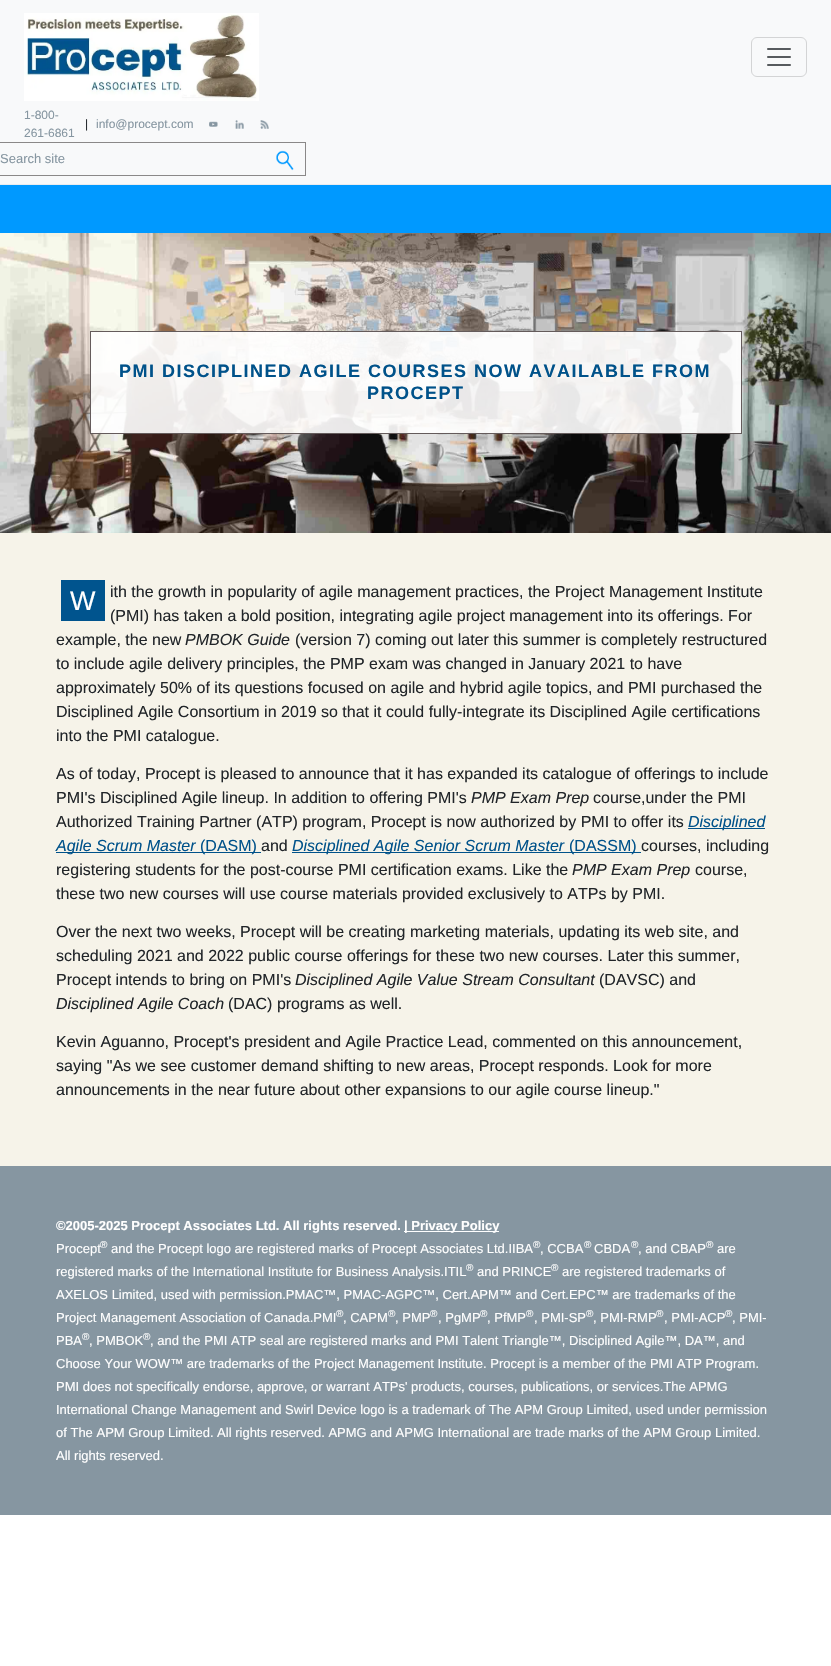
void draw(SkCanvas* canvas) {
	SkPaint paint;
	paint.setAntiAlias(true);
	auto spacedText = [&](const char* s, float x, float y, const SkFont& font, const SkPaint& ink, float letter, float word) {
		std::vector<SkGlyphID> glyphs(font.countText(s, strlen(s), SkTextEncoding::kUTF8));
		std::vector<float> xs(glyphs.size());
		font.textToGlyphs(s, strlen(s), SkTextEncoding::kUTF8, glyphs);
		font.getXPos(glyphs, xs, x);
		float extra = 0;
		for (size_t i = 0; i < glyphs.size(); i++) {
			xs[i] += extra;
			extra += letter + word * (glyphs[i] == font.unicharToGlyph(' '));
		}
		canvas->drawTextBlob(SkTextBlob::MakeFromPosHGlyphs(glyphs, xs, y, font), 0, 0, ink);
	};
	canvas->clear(0xffffffff);
	paint.setColor(0xfff8f9fa);
	canvas->drawRect(SkRect::MakeXYWH(0, 0, 831, 184), paint);
	canvas->drawImageRect(SkImages::DeferredFromEncodedData(SkData::MakeFromFileName("img1.png")), SkRect::MakeXYWH(24, 13, 235, 88), SkSamplingOptions());
	paint.setStroke(true);
	paint.setStrokeWidth(1);
	paint.setColor(0xffd3d4d5);
	canvas->drawRoundRect(SkRect::MakeXYWH(751.5, 37.5, 55, 39), 5.5, 5.5, paint);
	canvas->drawImageRect(SkImages::DeferredFromEncodedData(SkData::MakeFromFileName("img2.png")), SkRect::MakeXYWH(767, 48, 24, 18), SkSamplingOptions());
	SkFont f1(fontMgr->matchFamilyStyle("Liberation Sans", SkFontStyle::Normal()), 12);
	f1.setSubpixel(true);
	paint.setStroke(false);
	paint.setColor(0xff8696a1);
	canvas->drawString("1-800-", 24, 119, f1, paint);
	canvas->drawString("261-6861", 24, 137, f1, paint);
	paint.setColor(0xff212529);
	canvas->drawString("|", 85, 128, f1, paint);
	paint.setColor(0xff8696a1);
	canvas->drawString("info@procept.com", 96, 128, f1, paint);
	canvas->drawImageRect(SkImages::DeferredFromEncodedData(SkData::MakeFromFileName("img3.png")), SkRect::MakeXYWH(209, 121, 9, 6), SkSamplingOptions());
	canvas->drawImageRect(SkImages::DeferredFromEncodedData(SkData::MakeFromFileName("img4.png")), SkRect::MakeXYWH(235, 120, 9, 9), SkSamplingOptions());
	canvas->drawImageRect(SkImages::DeferredFromEncodedData(SkData::MakeFromFileName("img5.png")), SkRect::MakeXYWH(260, 120, 9, 9), SkSamplingOptions());
	paint.setStroke(true);
	paint.setColor(0xff8a8888);
	canvas->drawRect(SkRect::MakeXYWH(-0.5, 142.5, 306, 33), paint);
	SkFont f2(fontMgr->matchFamilyStyle("Liberation Sans", SkFontStyle::Normal()), 13);
	f2.setSubpixel(true);
	paint.setStroke(false);
	paint.setColor(0xff8696a1);
	canvas->drawString("Search site", 0, 163, f2, paint);
	canvas->drawImageRect(SkImages::DeferredFromEncodedData(SkData::MakeFromFileName("img6.png")), SkRect::MakeXYWH(276, 150, 18, 21), SkSamplingOptions());
	paint.setColor(0xff0099ff);
	canvas->drawRect(SkRect::MakeXYWH(0, 185, 831, 48), paint);
	paint.setColor(0xffe9ecef);
	canvas->drawRect(SkRect::MakeXYWH(0, 184, 831, 1), paint);
	canvas->drawImageRect(SkImages::DeferredFromEncodedData(SkData::MakeFromFileName("img7.png")), SkRect::MakeXYWH(0, 233, 831, 300), SkSamplingOptions());
	paint.setColor(0xe6ffffff);
	canvas->drawRect(SkRect::MakeXYWH(90.5, 331.5, 651, 102), paint);
	paint.setStroke(true);
	paint.setColor(0xff645b5b);
	canvas->drawRect(SkRect::MakeXYWH(90.5, 331.5, 651, 102), paint);
	SkFont f3(fontMgr->matchFamilyStyle("Liberation Sans", SkFontStyle::Bold()), 18);
	f3.setSubpixel(true);
	paint.setStroke(false);
	paint.setColor(0xff00528a);
	spacedText("PMI DISCIPLINED AGILE COURSES NOW AVAILABLE FROM", 119, 377, f3, paint, 1.5, 0);
	spacedText("PROCEPT", 367, 399, f3, paint, 1.5, 0);
	paint.setColor(0xfff6f3e9);
	canvas->drawRect(SkRect::MakeXYWH(0, 533, 831, 633), paint);
	paint.setColor(0xff00548e);
	canvas->drawRect(SkRect::MakeXYWH(61, 580, 44, 41), paint);
	SkFont f4(fontMgr->matchFamilyStyle("Liberation Sans", SkFontStyle::Normal()), 27);
	f4.setSubpixel(true);
	paint.setColor(0xffffffff);
	canvas->drawString("W", 70, 610, f4, paint);
	SkFont f5(fontMgr->matchFamilyStyle("Liberation Sans", SkFontStyle::Normal()), 16);
	f5.setSubpixel(true);
	paint.setColor(0xff212529);
	canvas->drawString("ith the growth in popularity of agile management practices, the Project Management Institute", 110, 597, f5, paint);
	canvas->drawString("(PMI) has taken a bold position, integrating agile project management into its offerings. For", 110, 621, f5, paint);
	canvas->drawString("example, the new", 56, 645, f5, paint);
	SkFont f6(fontMgr->matchFamilyStyle("Liberation Sans", SkFontStyle::Italic()), 16);
	f6.setSubpixel(true);
	canvas->drawString("PMBOK Guide", 185, 645, f6, paint);
	canvas->drawString("(version 7) coming out later this summer is completely restructured", 295, 645, f5, paint);
	canvas->drawString("to include agile delivery principles, the PMP exam was changed in January 2021 to have", 56, 669, f5, paint);
	canvas->drawString("approximately 50% of its questions focused on agile and hybrid agile topics, and PMI purchased the", 56, 693, f5, paint);
	canvas->drawString("Disciplined Agile Consortium in 2019 so that it could fully-integrate its Disciplined Agile certifications", 56, 717, f5, paint);
	canvas->drawString("into the PMI catalogue.", 56, 741, f5, paint);
	canvas->drawString("As of today, Procept is pleased to announce that it has expanded its catalogue of offerings to include", 56, 779, f5, paint);
	canvas->drawString("PMI's Disciplined Agile lineup. In addition to offering PMI's", 56, 803, f5, paint);
	canvas->drawString("PMP Exam Prep", 471, 803, f6, paint);
	canvas->drawString("course,under the PMI", 593, 803, f5, paint);
	canvas->drawString("Authorized Training Partner (ATP) program, Procept is now authorized by PMI to offer its", 56, 827, f5, paint);
	paint.setColor(0xff00528a);
	canvas->drawRect(SkRect::MakeXYWH(688, 828, 77, 1), paint);
	canvas->drawString("Disciplined", 688, 827, f6, paint);
	canvas->drawRect(SkRect::MakeXYWH(56, 852, 139, 1), paint);
	canvas->drawString("Agile Scrum Master", 56, 851, f6, paint);
	canvas->drawRect(SkRect::MakeXYWH(195, 852, 66, 1), paint);
	canvas->drawString("(DASM)", 200, 851, f5, paint);
	paint.setColor(0xff212529);
	canvas->drawString("and", 261, 851, f5, paint);
	paint.setColor(0xff00528a);
	canvas->drawRect(SkRect::MakeXYWH(292, 852, 349, 1), paint);
	canvas->drawString("Disciplined Agile Senior Scrum Master", 292, 851, f6, paint);
	canvas->drawString("(DASSM)", 569, 851, f5, paint);
	paint.setColor(0xff212529);
	canvas->drawString("courses, including", 641, 851, f5, paint);
	canvas->drawString("registering students for the post-course PMI certification exams. Like the", 56, 875, f5, paint);
	canvas->drawString("PMP Exam Prep", 572, 875, f6, paint);
	canvas->drawString("course,", 695, 875, f5, paint);
	canvas->drawString("these two new courses will use course materials provided exclusively to ATPs by PMI.", 56, 899, f5, paint);
	canvas->drawString("Over the next two weeks, Procept will be creating marketing materials, updating its web site, and", 56, 937, f5, paint);
	canvas->drawString("scheduling 2021 and 2022 public course offerings for these two new courses. Later this summer,", 56, 961, f5, paint);
	canvas->drawString("Procept intends to bring on PMI's", 56, 985, f5, paint);
	canvas->drawString("Disciplined Agile Value Stream Consultant", 295, 985, f6, paint);
	canvas->drawString("(DAVSC) and", 599, 985, f5, paint);
	canvas->drawString("Disciplined Agile Coach", 56, 1009, f6, paint);
	canvas->drawString("(DAC) programs as well.", 228, 1009, f5, paint);
	canvas->drawString("Kevin Aguanno, Procept's president and Agile Practice Lead, commented on this announcement,", 56, 1047, f5, paint);
	canvas->drawString("saying \"As we see customer demand shifting to new areas, Procept responds. Look for more", 56, 1071, f5, paint);
	canvas->drawString("announcements in the near future about other expansions to our agile course lineup.\"", 56, 1095, f5, paint);
	paint.setColor(0xff8696a1);
	canvas->drawRect(SkRect::MakeXYWH(0, 1166, 831, 349), paint);
	SkFont f7(fontMgr->matchFamilyStyle("Liberation Sans", SkFontStyle::Bold()), 13);
	f7.setSubpixel(true);
	paint.setColor(0xffffffff);
	canvas->drawString("©2005-2025 Procept Associates Ltd. All rights reserved.", 56, 1230, f7, paint);
	canvas->drawRect(SkRect::MakeXYWH(404, 1231, 95, 1), paint);
	canvas->drawString("| Privacy Policy", 404, 1230, f7, paint);
	canvas->drawString("Procept", 56, 1253, f2, paint);
	SkFont f8(fontMgr->matchFamilyStyle("Liberation Sans", SkFontStyle::Normal()), 10);
	f8.setSubpixel(true);
	canvas->drawString("®", 100, 1248, f8, paint);
	canvas->drawString("and the Procept logo are registered marks of Procept Associates Ltd.IIBA", 111, 1253, f2, paint);
	canvas->drawString("®", 533, 1248, f8, paint);
	canvas->drawString(", CCBA", 540, 1253, f2, paint);
	canvas->drawString("®", 584, 1248, f8, paint);
	canvas->drawString("CBDA", 594, 1253, f2, paint);
	canvas->drawString("®", 631, 1248, f8, paint);
	canvas->drawString(", and CBAP", 638, 1253, f2, paint);
	canvas->drawString("®", 706, 1248, f8, paint);
	canvas->drawString("are", 717, 1253, f2, paint);
	canvas->drawString("registered marks of the International Institute for Business Analysis.ITIL", 56, 1276, f2, paint);
	canvas->drawString("®", 466, 1271, f8, paint);
	canvas->drawString("and PRINCE", 477, 1276, f2, paint);
	canvas->drawString("®", 551, 1271, f8, paint);
	canvas->drawString("are registered trademarks of", 562, 1276, f2, paint);
	canvas->drawString("AXELOS Limited, used with permission.PMAC™, PMAC-AGPC™, Cert.APM™ and Cert.EPC™ are trademarks of the", 56, 1299, f2, paint);
	canvas->drawString("Project Management Association of Canada.PMI", 56, 1322, f2, paint);
	canvas->drawString("®", 336, 1317, f8, paint);
	canvas->drawString(", CAPM", 343, 1322, f2, paint);
	canvas->drawString("®", 388, 1317, f8, paint);
	canvas->drawString(", PMP", 395, 1322, f2, paint);
	canvas->drawString("®", 430, 1317, f8, paint);
	canvas->drawString(", PgMP", 438, 1322, f2, paint);
	canvas->drawString("®", 480, 1317, f8, paint);
	canvas->drawString(", PfMP", 487, 1322, f2, paint);
	canvas->drawString("®", 526, 1317, f8, paint);
	canvas->drawString(", PMI-SP", 534, 1322, f2, paint);
	canvas->drawString("®", 586, 1317, f8, paint);
	canvas->drawString(", PMI-RMP", 593, 1322, f2, paint);
	canvas->drawString("®", 656, 1317, f8, paint);
	canvas->drawString(", PMI-ACP", 664, 1322, f2, paint);
	canvas->drawString("®", 725, 1317, f8, paint);
	canvas->drawString(", PMI-", 732, 1322, f2, paint);
	canvas->drawString("PBA", 56, 1345, f2, paint);
	canvas->drawString("®", 82, 1340, f8, paint);
	canvas->drawString(", PMBOK", 89, 1345, f2, paint);
	canvas->drawString("®", 143, 1340, f8, paint);
	canvas->drawString(", and the PMI ATP seal are registered marks and PMI Talent Triangle™, Disciplined Agile™, DA™, and", 150, 1345, f2, paint);
	canvas->drawString("Choose Your WOW™ are trademarks of the Project Management Institute. Procept is a member of the PMI ATP Program.", 56, 1368, f2, paint);
	canvas->drawString("PMI does not specifically endorse, approve, or warrant ATPs' products, courses, publications, or services.The APMG", 56, 1391, f2, paint);
	canvas->drawString("International Change Management and Swirl Device logo is a trademark of The APM Group Limited, used under permission", 56, 1414, f2, paint);
	canvas->drawString("of The APM Group Limited. All rights reserved. APMG and APMG International are trade marks of the APM Group Limited.", 56, 1437, f2, paint);
	canvas->drawString("All rights reserved.", 56, 1460, f2, paint);
}
